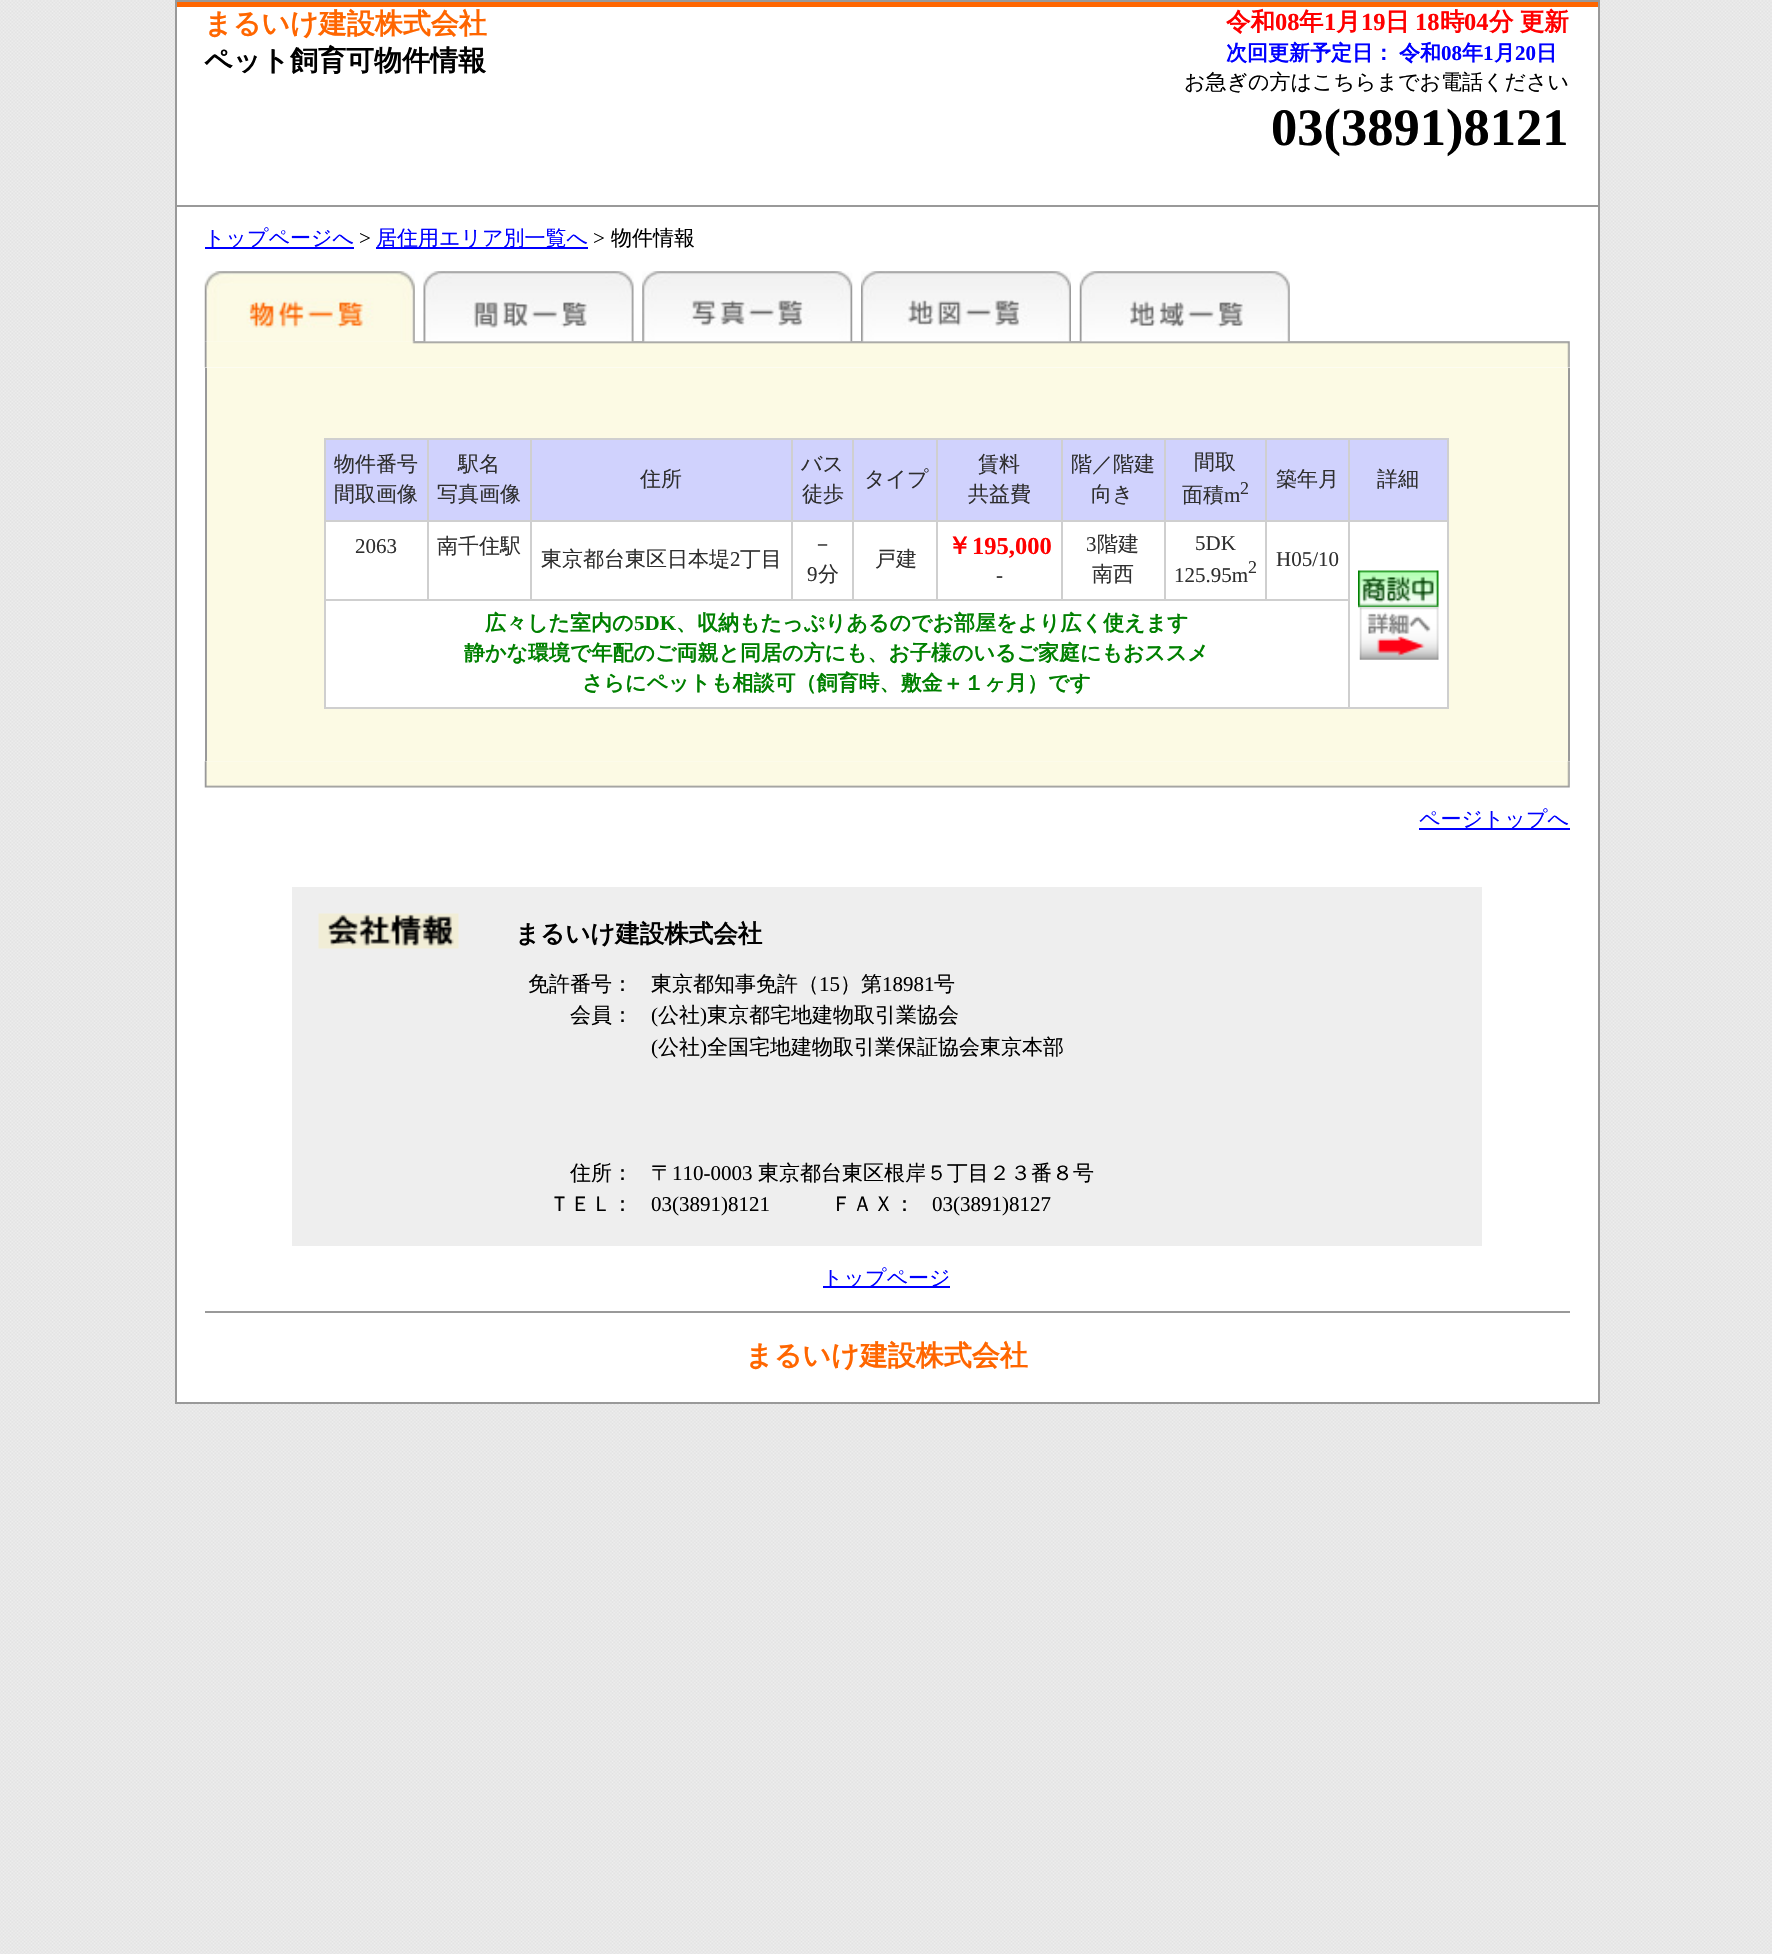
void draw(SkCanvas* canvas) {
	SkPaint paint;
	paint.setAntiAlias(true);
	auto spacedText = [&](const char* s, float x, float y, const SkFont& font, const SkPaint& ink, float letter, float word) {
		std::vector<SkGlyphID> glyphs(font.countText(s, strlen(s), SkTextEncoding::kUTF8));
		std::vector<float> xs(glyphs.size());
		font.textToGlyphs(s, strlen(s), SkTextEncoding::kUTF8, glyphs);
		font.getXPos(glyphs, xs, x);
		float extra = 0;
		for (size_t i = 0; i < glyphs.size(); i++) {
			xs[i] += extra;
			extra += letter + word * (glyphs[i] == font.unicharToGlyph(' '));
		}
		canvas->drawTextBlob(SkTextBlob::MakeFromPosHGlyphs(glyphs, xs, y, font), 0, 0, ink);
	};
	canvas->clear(0xffffffff);
	canvas->drawImageRect(SkImages::DeferredFromEncodedData(SkData::MakeFromFileName("img1.png")), SkRect::MakeXYWH(0, 0, 1772, 1954), SkSamplingOptions());
	paint.setColor(0xffffffff);
	canvas->drawRect(SkRect::MakeXYWH(177, 7, 1421, 1395), paint);
	paint.setStroke(true);
	paint.setStrokeWidth(2);
	paint.setColor(0xff999999);
	canvas->drawRect(SkRect::MakeXYWH(176, 1, 1423, 1402), paint);
	paint.setStroke(false);
	paint.setColor(0xffff6600);
	canvas->drawRect(SkRect::MakeXYWH(177, 2, 1421, 5), paint);
	paint.setColor(0xff999999);
	canvas->drawRect(SkRect::MakeXYWH(177, 205, 1421, 2), paint);
	SkFont f1(fontMgr->matchFamilyStyle("WenQuanYi Zen Hei", SkFontStyle::Bold()), 28);
	f1.setSubpixel(true);
	paint.setColor(0xffff6600);
	canvas->drawString("まるいけ建設株式会社", 204, 33, f1, paint);
	paint.setColor(0xff000000);
	canvas->drawString("ペット飼育可物件情報", 204, 70, f1, paint);
	SkFont f2(fontMgr->matchFamilyStyle("WenQuanYi Zen Hei", SkFontStyle::Bold()), 24.5);
	f2.setSubpixel(true);
	paint.setColor(0xffff0000);
	canvas->drawString("令和", 1226, 30, f2, paint);
	SkFont f3(fontMgr->matchFamilyStyle("Liberation Serif", SkFontStyle::Bold()), 24.5);
	f3.setSubpixel(true);
	canvas->drawString("08", 1275, 30, f3, paint);
	canvas->drawString("年", 1299, 30, f2, paint);
	canvas->drawString("1", 1324, 30, f3, paint);
	canvas->drawString("月", 1336, 30, f2, paint);
	canvas->drawString("19", 1361, 30, f3, paint);
	canvas->drawString("日", 1385, 30, f2, paint);
	canvas->drawString("18", 1415, 30, f3, paint);
	canvas->drawString("時", 1440, 30, f2, paint);
	canvas->drawString("04", 1464, 30, f3, paint);
	spacedText("分 更新", 1489, 30, f2, paint, 0, -1);
	SkFont f4(fontMgr->matchFamilyStyle("WenQuanYi Zen Hei", SkFontStyle::Bold()), 21);
	f4.setSubpixel(true);
	paint.setColor(0xff0000ff);
	canvas->drawString("次回更新予定日：", 1226, 60, f4, paint);
	canvas->drawString("令和", 1399, 60, f4, paint);
	SkFont f5(fontMgr->matchFamilyStyle("Liberation Serif", SkFontStyle::Bold()), 21);
	f5.setSubpixel(true);
	canvas->drawString("08", 1441, 60, f5, paint);
	canvas->drawString("年", 1462, 60, f4, paint);
	canvas->drawString("1", 1483, 60, f5, paint);
	canvas->drawString("月", 1494, 60, f4, paint);
	canvas->drawString("20", 1515, 60, f5, paint);
	canvas->drawString("日", 1536, 60, f4, paint);
	SkFont f6(fontMgr->matchFamilyStyle("WenQuanYi Zen Hei", SkFontStyle(500, SkFontStyle::kNormal_Width, SkFontStyle::kUpright_Slant)), 21);
	f6.setSubpixel(true);
	paint.setColor(0xff000000);
	canvas->drawString("お急ぎの方はこちらまでお電話ください", 1184, 89, f6, paint);
	SkFont f7(fontMgr->matchFamilyStyle("Liberation Serif", SkFontStyle::Bold()), 52.5);
	f7.setSubpixel(true);
	canvas->drawString("03(3891)8121", 1271, 145, f7, paint);
	paint.setColor(0xff0000ff);
	canvas->drawRect(SkRect::MakeXYWH(205, 247, 149, 2), paint);
	canvas->drawString("トップページへ", 204, 245, f6, paint);
	SkFont f8(fontMgr->matchFamilyStyle("Liberation Serif", SkFontStyle::Normal()), 21);
	f8.setSubpixel(true);
	paint.setColor(0xff000000);
	canvas->drawString(">", 359, 245, f8, paint);
	paint.setColor(0xff0000ff);
	canvas->drawRect(SkRect::MakeXYWH(376, 247, 212, 2), paint);
	canvas->drawString("居住用エリア別一覧へ", 376, 245, f6, paint);
	paint.setColor(0xff000000);
	canvas->drawString(">", 593, 245, f8, paint);
	canvas->drawString("物件情報", 611, 245, f6, paint);
	canvas->drawImageRect(SkImages::DeferredFromEncodedData(SkData::MakeFromFileName("img7.png")), SkRect::MakeXYWH(204, 341, 1366, 27), SkSamplingOptions());
	canvas->drawImageRect(SkImages::DeferredFromEncodedData(SkData::MakeFromFileName("img2.png")), SkRect::MakeXYWH(204, 271, 211, 71), SkSamplingOptions());
	canvas->drawImageRect(SkImages::DeferredFromEncodedData(SkData::MakeFromFileName("img3.png")), SkRect::MakeXYWH(423, 271, 211, 71), SkSamplingOptions());
	canvas->drawImageRect(SkImages::DeferredFromEncodedData(SkData::MakeFromFileName("img4.png")), SkRect::MakeXYWH(642, 271, 211, 71), SkSamplingOptions());
	canvas->drawImageRect(SkImages::DeferredFromEncodedData(SkData::MakeFromFileName("img5.png")), SkRect::MakeXYWH(861, 271, 210, 71), SkSamplingOptions());
	canvas->drawImageRect(SkImages::DeferredFromEncodedData(SkData::MakeFromFileName("img6.png")), SkRect::MakeXYWH(1079, 271, 211, 71), SkSamplingOptions());
	paint.setColor(0xfffcfae4);
	canvas->drawRect(SkRect::MakeXYWH(207, 368, 1361, 393), paint);
	paint.setColor(0xff999999);
	canvas->drawRect(SkRect::MakeXYWH(1568, 368, 2, 393), paint);
	canvas->drawRect(SkRect::MakeXYWH(205, 368, 2, 393), paint);
	paint.setColor(0xffcfcfcf);
	canvas->drawRect(SkRect::MakeXYWH(324, 438, 1125, 2), paint);
	canvas->drawRect(SkRect::MakeXYWH(1447, 438, 2, 271), paint);
	canvas->drawRect(SkRect::MakeXYWH(324, 707, 1125, 2), paint);
	canvas->drawRect(SkRect::MakeXYWH(324, 438, 2, 271), paint);
	paint.setColor(0xffd0d2fd);
	canvas->drawRect(SkRect::MakeXYWH(326, 440, 101, 80), paint);
	paint.setColor(0xff2f2f2f);
	canvas->drawString("物件番号", 334, 471, f6, paint);
	canvas->drawString("間取画像", 334, 501, f6, paint);
	paint.setColor(0xffd0d2fd);
	canvas->drawRect(SkRect::MakeXYWH(429, 440, 101, 80), paint);
	paint.setColor(0xffcfcfcf);
	canvas->drawRect(SkRect::MakeXYWH(1348, 520, 101, 2), paint);
	canvas->drawRect(SkRect::MakeXYWH(324, 599, 1025, 2), paint);
	canvas->drawRect(SkRect::MakeXYWH(1348, 520, 2, 189), paint);
	canvas->drawRect(SkRect::MakeXYWH(1265, 520, 84, 2), paint);
	canvas->drawRect(SkRect::MakeXYWH(1265, 520, 2, 80), paint);
	canvas->drawRect(SkRect::MakeXYWH(1164, 520, 103, 2), paint);
	canvas->drawRect(SkRect::MakeXYWH(1164, 520, 2, 80), paint);
	canvas->drawRect(SkRect::MakeXYWH(1061, 520, 105, 2), paint);
	canvas->drawRect(SkRect::MakeXYWH(1061, 520, 2, 80), paint);
	canvas->drawRect(SkRect::MakeXYWH(936, 520, 126, 2), paint);
	canvas->drawRect(SkRect::MakeXYWH(936, 520, 2, 80), paint);
	canvas->drawRect(SkRect::MakeXYWH(852, 520, 86, 2), paint);
	canvas->drawRect(SkRect::MakeXYWH(852, 520, 2, 80), paint);
	canvas->drawRect(SkRect::MakeXYWH(791, 520, 63, 2), paint);
	canvas->drawRect(SkRect::MakeXYWH(791, 520, 2, 80), paint);
	canvas->drawRect(SkRect::MakeXYWH(530, 520, 263, 2), paint);
	canvas->drawRect(SkRect::MakeXYWH(530, 520, 2, 80), paint);
	canvas->drawRect(SkRect::MakeXYWH(427, 520, 105, 2), paint);
	canvas->drawRect(SkRect::MakeXYWH(427, 520, 2, 80), paint);
	canvas->drawRect(SkRect::MakeXYWH(324, 520, 105, 2), paint);
	canvas->drawRect(SkRect::MakeXYWH(427, 438, 2, 84), paint);
	paint.setColor(0xff2f2f2f);
	canvas->drawString("駅名", 458, 471, f6, paint);
	canvas->drawString("写真画像", 437, 501, f6, paint);
	paint.setColor(0xffd0d2fd);
	canvas->drawRect(SkRect::MakeXYWH(532, 440, 259, 80), paint);
	paint.setColor(0xffcfcfcf);
	canvas->drawRect(SkRect::MakeXYWH(530, 438, 2, 84), paint);
	paint.setColor(0xff2f2f2f);
	canvas->drawString("住所", 640, 486, f6, paint);
	paint.setColor(0xffd0d2fd);
	canvas->drawRect(SkRect::MakeXYWH(793, 440, 59, 80), paint);
	paint.setColor(0xffcfcfcf);
	canvas->drawRect(SkRect::MakeXYWH(791, 438, 2, 84), paint);
	paint.setColor(0xff2f2f2f);
	canvas->drawString("バス", 801, 471, f6, paint);
	canvas->drawString("徒歩", 802, 501, f6, paint);
	paint.setColor(0xffd0d2fd);
	canvas->drawRect(SkRect::MakeXYWH(854, 440, 82, 80), paint);
	paint.setColor(0xffcfcfcf);
	canvas->drawRect(SkRect::MakeXYWH(852, 438, 2, 84), paint);
	paint.setColor(0xff2f2f2f);
	canvas->drawString("タイプ", 864, 486, f6, paint);
	paint.setColor(0xffd0d2fd);
	canvas->drawRect(SkRect::MakeXYWH(938, 440, 123, 80), paint);
	paint.setColor(0xffcfcfcf);
	canvas->drawRect(SkRect::MakeXYWH(936, 438, 2, 84), paint);
	paint.setColor(0xff2f2f2f);
	canvas->drawString("賃料", 978, 471, f6, paint);
	canvas->drawString("共益費", 968, 501, f6, paint);
	paint.setColor(0xffd0d2fd);
	canvas->drawRect(SkRect::MakeXYWH(1063, 440, 101, 80), paint);
	paint.setColor(0xffcfcfcf);
	canvas->drawRect(SkRect::MakeXYWH(1061, 438, 2, 84), paint);
	paint.setColor(0xff2f2f2f);
	canvas->drawString("階／階建", 1071, 471, f6, paint);
	canvas->drawString("向き", 1091, 501, f6, paint);
	paint.setColor(0xffd0d2fd);
	canvas->drawRect(SkRect::MakeXYWH(1166, 440, 99, 80), paint);
	paint.setColor(0xffcfcfcf);
	canvas->drawRect(SkRect::MakeXYWH(1164, 438, 2, 84), paint);
	paint.setColor(0xff2f2f2f);
	canvas->drawString("間取", 1194, 469, f6, paint);
	canvas->drawString("面積", 1182, 502, f6, paint);
	canvas->drawString("m", 1224, 502, f8, paint);
	SkFont f9(fontMgr->matchFamilyStyle("Liberation Serif", SkFontStyle::Normal()), 18);
	f9.setSubpixel(true);
	canvas->drawString("2", 1240, 494, f9, paint);
	paint.setColor(0xffd0d2fd);
	canvas->drawRect(SkRect::MakeXYWH(1267, 440, 81, 80), paint);
	paint.setColor(0xffcfcfcf);
	canvas->drawRect(SkRect::MakeXYWH(1265, 438, 2, 84), paint);
	paint.setColor(0xff2f2f2f);
	canvas->drawString("築年月", 1276, 486, f6, paint);
	paint.setColor(0xffd0d2fd);
	canvas->drawRect(SkRect::MakeXYWH(1350, 440, 97, 80), paint);
	paint.setColor(0xffcfcfcf);
	canvas->drawRect(SkRect::MakeXYWH(1348, 438, 2, 84), paint);
	paint.setColor(0xff2f2f2f);
	canvas->drawString("詳細", 1377, 486, f6, paint);
	paint.setColor(0xffffffff);
	canvas->drawRect(SkRect::MakeXYWH(326, 522, 101, 77), paint);
	paint.setColor(0xff2f2f2f);
	canvas->drawString("2063", 355, 553, f8, paint);
	paint.setColor(0xffffffff);
	canvas->drawRect(SkRect::MakeXYWH(429, 522, 101, 77), paint);
	paint.setColor(0xff2f2f2f);
	canvas->drawString("南千住駅", 437, 553, f6, paint);
	paint.setColor(0xffffffff);
	canvas->drawRect(SkRect::MakeXYWH(532, 522, 259, 77), paint);
	paint.setColor(0xff2f2f2f);
	canvas->drawString("東京都台東区日本堤", 541, 566, f6, paint);
	canvas->drawString("2", 730, 566, f8, paint);
	canvas->drawString("丁目", 740, 566, f6, paint);
	paint.setColor(0xffffffff);
	canvas->drawRect(SkRect::MakeXYWH(793, 522, 59, 77), paint);
	paint.setColor(0xff2f2f2f);
	canvas->drawString("－", 812, 551, f6, paint);
	canvas->drawString("9", 807, 581, f8, paint);
	canvas->drawString("分", 818, 581, f6, paint);
	paint.setColor(0xffffffff);
	canvas->drawRect(SkRect::MakeXYWH(854, 522, 82, 77), paint);
	paint.setColor(0xff2f2f2f);
	canvas->drawString("戸建", 875, 566, f6, paint);
	paint.setColor(0xffffffff);
	canvas->drawRect(SkRect::MakeXYWH(938, 522, 123, 77), paint);
	paint.setColor(0xffff0000);
	canvas->drawString("￥", 947, 554, f2, paint);
	canvas->drawString("195,000", 972, 554, f3, paint);
	paint.setColor(0xff2f2f2f);
	canvas->drawString("-", 996, 582, f8, paint);
	paint.setColor(0xffffffff);
	canvas->drawRect(SkRect::MakeXYWH(1063, 522, 101, 77), paint);
	paint.setColor(0xff2f2f2f);
	canvas->drawString("3", 1086, 551, f8, paint);
	canvas->drawString("階建", 1097, 551, f6, paint);
	canvas->drawString("南西", 1092, 581, f6, paint);
	paint.setColor(0xffffffff);
	canvas->drawRect(SkRect::MakeXYWH(1166, 522, 99, 77), paint);
	paint.setColor(0xff2f2f2f);
	canvas->drawString("5DK", 1195, 550, f8, paint);
	canvas->drawString("125.95m", 1174, 582, f8, paint);
	canvas->drawString("2", 1248, 573, f9, paint);
	paint.setColor(0xffffffff);
	canvas->drawRect(SkRect::MakeXYWH(1267, 522, 81, 77), paint);
	paint.setColor(0xff2f2f2f);
	canvas->drawString("H05/10", 1276, 566, f8, paint);
	paint.setColor(0xffffffff);
	canvas->drawRect(SkRect::MakeXYWH(1350, 522, 97, 185), paint);
	canvas->drawImageRect(SkImages::DeferredFromEncodedData(SkData::MakeFromFileName("img8.png")), SkRect::MakeXYWH(1358, 570, 81, 38), SkSamplingOptions());
	canvas->drawImageRect(SkImages::DeferredFromEncodedData(SkData::MakeFromFileName("img9.png")), SkRect::MakeXYWH(1359, 607, 80, 53), SkSamplingOptions());
	canvas->drawRect(SkRect::MakeXYWH(326, 601, 1022, 106), paint);
	paint.setColor(0xff008000);
	canvas->drawString("広々した室内の", 485, 630, f4, paint);
	canvas->drawString("5DK", 634, 630, f5, paint);
	canvas->drawString("、収納もたっぷりあるのでお部屋をより広く使えます", 676, 630, f4, paint);
	canvas->drawString("静かな環境で年配のご両親と同居の方にも、お子様のいるご家庭にもおススメ", 464, 660, f4, paint);
	canvas->drawString("さらにペットも相談可（飼育時、敷金＋１ヶ月）です", 582, 690, f4, paint);
	canvas->drawImageRect(SkImages::DeferredFromEncodedData(SkData::MakeFromFileName("img10.png")), SkRect::MakeXYWH(204, 761, 1366, 27), SkSamplingOptions());
	paint.setColor(0xff0000ff);
	canvas->drawRect(SkRect::MakeXYWH(1419, 828, 151, 2), paint);
	canvas->drawString("ページトップへ", 1419, 826, f6, paint);
	paint.setColor(0xffeeeeee);
	canvas->drawRect(SkRect::MakeXYWH(292, 887, 1190, 359), paint);
	canvas->drawImageRect(SkImages::DeferredFromEncodedData(SkData::MakeFromFileName("img11.png")), SkRect::MakeXYWH(318, 913, 141, 36), SkSamplingOptions());
	paint.setColor(0xff000000);
	canvas->drawString("まるいけ建設株式会社", 515, 942, f2, paint);
	canvas->drawString("免許番号：", 528, 991, f6, paint);
	canvas->drawString("東京都知事免許（", 651, 991, f6, paint);
	canvas->drawString("15", 819, 991, f8, paint);
	canvas->drawString("）第", 840, 991, f6, paint);
	canvas->drawString("18981", 882, 991, f8, paint);
	canvas->drawString("号", 934, 991, f6, paint);
	canvas->drawString("会員：", 570, 1022, f6, paint);
	canvas->drawString("(", 651, 1022, f8, paint);
	canvas->drawString("公社", 658, 1022, f6, paint);
	canvas->drawString(")", 700, 1022, f8, paint);
	canvas->drawString("東京都宅地建物取引業協会", 707, 1022, f6, paint);
	canvas->drawString("(", 651, 1054, f8, paint);
	canvas->drawString("公社", 658, 1054, f6, paint);
	canvas->drawString(")", 700, 1054, f8, paint);
	canvas->drawString("全国宅地建物取引業保証協会東京本部", 707, 1054, f6, paint);
	canvas->drawString("住所：", 570, 1180, f6, paint);
	canvas->drawString("〒", 651, 1180, f6, paint);
	canvas->drawString("110-0003", 672, 1180, f8, paint);
	canvas->drawString("東京都台東区根岸５丁目２３番８号", 758, 1180, f6, paint);
	canvas->drawString("ＴＥＬ：", 549, 1211, f6, paint);
	canvas->drawString("03(3891)8121", 651, 1211, f8, paint);
	canvas->drawString("ＦＡＸ：", 831, 1211, f6, paint);
	canvas->drawString("03(3891)8127", 932, 1211, f8, paint);
	paint.setColor(0xff0000ff);
	canvas->drawRect(SkRect::MakeXYWH(823, 1286, 127, 2), paint);
	canvas->drawString("トップページ", 822, 1285, f6, paint);
	paint.setColor(0xff999999);
	canvas->drawRect(SkRect::MakeXYWH(205, 1311, 1365, 2), paint);
	paint.setColor(0xffff6600);
	canvas->drawString("まるいけ建設株式会社", 745, 1365, f1, paint);
}
